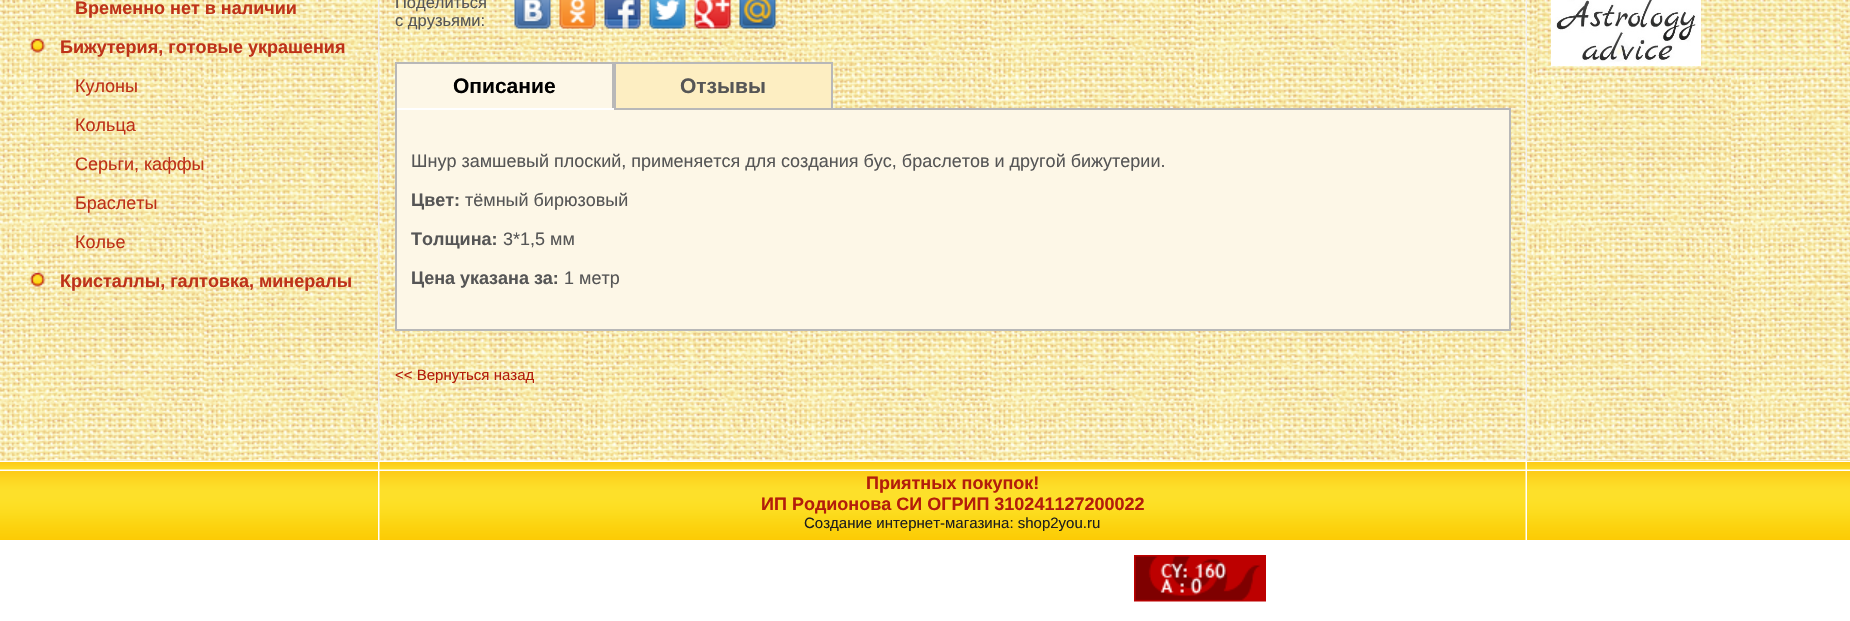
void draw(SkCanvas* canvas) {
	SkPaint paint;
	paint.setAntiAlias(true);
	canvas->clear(0xffffffff);
	paint.setColor(0xfff8efc0);
	canvas->drawRect(SkRect::MakeXYWH(0, 460, 378, 1), paint);
	canvas->drawImageRect(SkImages::DeferredFromEncodedData(SkData::MakeFromFileName("img1.png")), SkRect::MakeXYWH(0, 0, 378, 461), SkSamplingOptions());
	SkFont f1(fontMgr->matchFamilyStyle("Liberation Sans", SkFontStyle::Bold()), 18);
	f1.setSubpixel(true);
	paint.setColor(0xffbe3219);
	canvas->drawString("Временно нет в наличии", 75, 14, f1, paint);
	canvas->drawImageRect(SkImages::DeferredFromEncodedData(SkData::MakeFromFileName("img2.png")), SkRect::MakeXYWH(29, 38, 17, 15), SkSamplingOptions());
	canvas->drawString("Бижутерия, готовые украшения", 60, 53, f1, paint);
	SkFont f2(fontMgr->matchFamilyStyle("Liberation Sans", SkFontStyle::Normal()), 18);
	f2.setSubpixel(true);
	canvas->drawString("Кулоны", 75, 92, f2, paint);
	canvas->drawString("Кольца", 75, 131, f2, paint);
	canvas->drawString("Серьги, каффы", 75, 170, f2, paint);
	canvas->drawString("Браслеты", 75, 209, f2, paint);
	canvas->drawString("Колье", 75, 248, f2, paint);
	canvas->drawImageRect(SkImages::DeferredFromEncodedData(SkData::MakeFromFileName("img3.png")), SkRect::MakeXYWH(29, 272, 17, 15), SkSamplingOptions());
	canvas->drawString("Кристаллы, галтовка, минералы", 60, 287, f1, paint);
	paint.setColor(0xfff0f0f2);
	canvas->drawRect(SkRect::MakeXYWH(378, 0, 2, 461), paint);
	canvas->drawImageRect(SkImages::DeferredFromEncodedData(SkData::MakeFromFileName("img4.png")), SkRect::MakeXYWH(379, 0, 1147, 461), SkSamplingOptions());
	SkFont f3(fontMgr->matchFamilyStyle("Liberation Sans", SkFontStyle::Normal()), 16.5);
	f3.setSubpixel(true);
	paint.setColor(0xff565656);
	canvas->drawString("Поделиться", 395, 8, f3, paint);
	canvas->drawString("с друзьями:", 395, 26, f3, paint);
	canvas->drawImageRect(SkImages::DeferredFromEncodedData(SkData::MakeFromFileName("img5.png")), SkRect::MakeXYWH(514, 0, 37, 29), SkSamplingOptions());
	canvas->drawImageRect(SkImages::DeferredFromEncodedData(SkData::MakeFromFileName("img6.png")), SkRect::MakeXYWH(559, 0, 37, 29), SkSamplingOptions());
	canvas->drawImageRect(SkImages::DeferredFromEncodedData(SkData::MakeFromFileName("img7.png")), SkRect::MakeXYWH(604, 0, 37, 29), SkSamplingOptions());
	canvas->drawImageRect(SkImages::DeferredFromEncodedData(SkData::MakeFromFileName("img8.png")), SkRect::MakeXYWH(649, 0, 37, 29), SkSamplingOptions());
	canvas->drawImageRect(SkImages::DeferredFromEncodedData(SkData::MakeFromFileName("img9.png")), SkRect::MakeXYWH(694, 0, 37, 29), SkSamplingOptions());
	canvas->drawImageRect(SkImages::DeferredFromEncodedData(SkData::MakeFromFileName("img10.png")), SkRect::MakeXYWH(739, 0, 37, 29), SkSamplingOptions());
	paint.setColor(0xffb8b8b8);
	canvas->drawRect(SkRect::MakeXYWH(833, 108, 678, 2), paint);
	paint.setColor(0xfffdf7e7);
	canvas->drawRect(SkRect::MakeXYWH(397, 64, 215, 44), paint);
	paint.setColor(0xffb8b8b8);
	canvas->drawRect(SkRect::MakeXYWH(395, 62, 219, 2), paint);
	canvas->drawRect(SkRect::MakeXYWH(612, 62, 2, 48), paint);
	paint.setColor(0xffffffff);
	canvas->drawRect(SkRect::MakeXYWH(395, 108, 219, 2), paint);
	paint.setColor(0xffb8b8b8);
	canvas->drawRect(SkRect::MakeXYWH(395, 62, 2, 48), paint);
	SkFont f4(fontMgr->matchFamilyStyle("Liberation Sans", SkFontStyle::Bold()), 21);
	f4.setSubpixel(true);
	paint.setColor(0xff000000);
	canvas->drawString("Описание", 453, 93, f4, paint);
	paint.setColor(0xfffdeec2);
	canvas->drawRect(SkRect::MakeXYWH(615, 63, 217, 46), paint);
	paint.setStroke(true);
	paint.setStrokeWidth(2);
	paint.setColor(0xffb8b8b8);
	canvas->drawRect(SkRect::MakeXYWH(615, 63, 217, 46), paint);
	paint.setStroke(false);
	paint.setColor(0xff565656);
	canvas->drawString("Отзывы", 680, 93, f4, paint);
	paint.setColor(0xfffdf7e7);
	canvas->drawRect(SkRect::MakeXYWH(397, 110, 1112, 219), paint);
	paint.setColor(0xffb8b8b8);
	canvas->drawRect(SkRect::MakeXYWH(1509, 110, 2, 220), paint);
	canvas->drawRect(SkRect::MakeXYWH(395, 329, 1116, 2), paint);
	canvas->drawRect(SkRect::MakeXYWH(395, 110, 2, 220), paint);
	paint.setColor(0xff565656);
	canvas->drawString("Шнур замшевый плоский, применяется для создания бус, браслетов и другой бижутерии.", 411, 167, f2, paint);
	canvas->drawString("Цвет:", 411, 206, f1, paint);
	canvas->drawString("тёмный бирюзовый", 465, 206, f2, paint);
	canvas->drawString("Толщина:", 411, 245, f1, paint);
	canvas->drawString("3*1,5 мм", 503, 245, f2, paint);
	canvas->drawString("Цена указана за:", 411, 284, f1, paint);
	canvas->drawString("1 метр", 564, 284, f2, paint);
	SkFont f5(fontMgr->matchFamilyStyle("Liberation Sans", SkFontStyle::Normal()), 15);
	f5.setSubpixel(true);
	paint.setColor(0xffb31d0b);
	canvas->drawString("<< Вернуться назад", 395, 380, f5, paint);
	paint.setColor(0xfff0f0f2);
	canvas->drawRect(SkRect::MakeXYWH(1526, 0, 1, 461), paint);
	paint.setColor(0xffedd488);
	canvas->drawRect(SkRect::MakeXYWH(1527, 460, 323, 1), paint);
	canvas->drawImageRect(SkImages::DeferredFromEncodedData(SkData::MakeFromFileName("img11.png")), SkRect::MakeXYWH(1527, 0, 323, 461), SkSamplingOptions());
	canvas->drawImageRect(SkImages::DeferredFromEncodedData(SkData::MakeFromFileName("img12.png")), SkRect::MakeXYWH(1537, 0, 304, 77), SkSamplingOptions());
	canvas->drawImageRect(SkImages::DeferredFromEncodedData(SkData::MakeFromFileName("img13.png")), SkRect::MakeXYWH(1551, 0, 150, 66), SkSamplingOptions());
	canvas->drawImageRect(SkImages::DeferredFromEncodedData(SkData::MakeFromFileName("img14.png")), SkRect::MakeXYWH(0, 462, 378, 8), SkSamplingOptions());
	canvas->drawImageRect(SkImages::DeferredFromEncodedData(SkData::MakeFromFileName("img15.png")), SkRect::MakeXYWH(379, 462, 1147, 8), SkSamplingOptions());
	canvas->drawImageRect(SkImages::DeferredFromEncodedData(SkData::MakeFromFileName("img16.png")), SkRect::MakeXYWH(1527, 462, 323, 8), SkSamplingOptions());
	canvas->drawImageRect(SkImages::DeferredFromEncodedData(SkData::MakeFromFileName("img17.png")), SkRect::MakeXYWH(0, 471, 378, 69), SkSamplingOptions());
	canvas->drawImageRect(SkImages::DeferredFromEncodedData(SkData::MakeFromFileName("img18.png")), SkRect::MakeXYWH(379, 471, 1147, 69), SkSamplingOptions());
	paint.setColor(0xffb31d0b);
	canvas->drawString("Приятных покупок!", 866, 489, f1, paint);
	canvas->drawString("ИП Родионова СИ ОГРИП 310241127200022", 761, 510, f1, paint);
	paint.setColor(0xff1e1e1e);
	canvas->drawString("Создание интернет-магазина: shop2you.ru", 804, 528, f5, paint);
	canvas->drawImageRect(SkImages::DeferredFromEncodedData(SkData::MakeFromFileName("img19.png")), SkRect::MakeXYWH(1527, 471, 323, 69), SkSamplingOptions());
	canvas->drawImageRect(SkImages::DeferredFromEncodedData(SkData::MakeFromFileName("img20.png")), SkRect::MakeXYWH(1134, 555, 132, 47), SkSamplingOptions());
}
